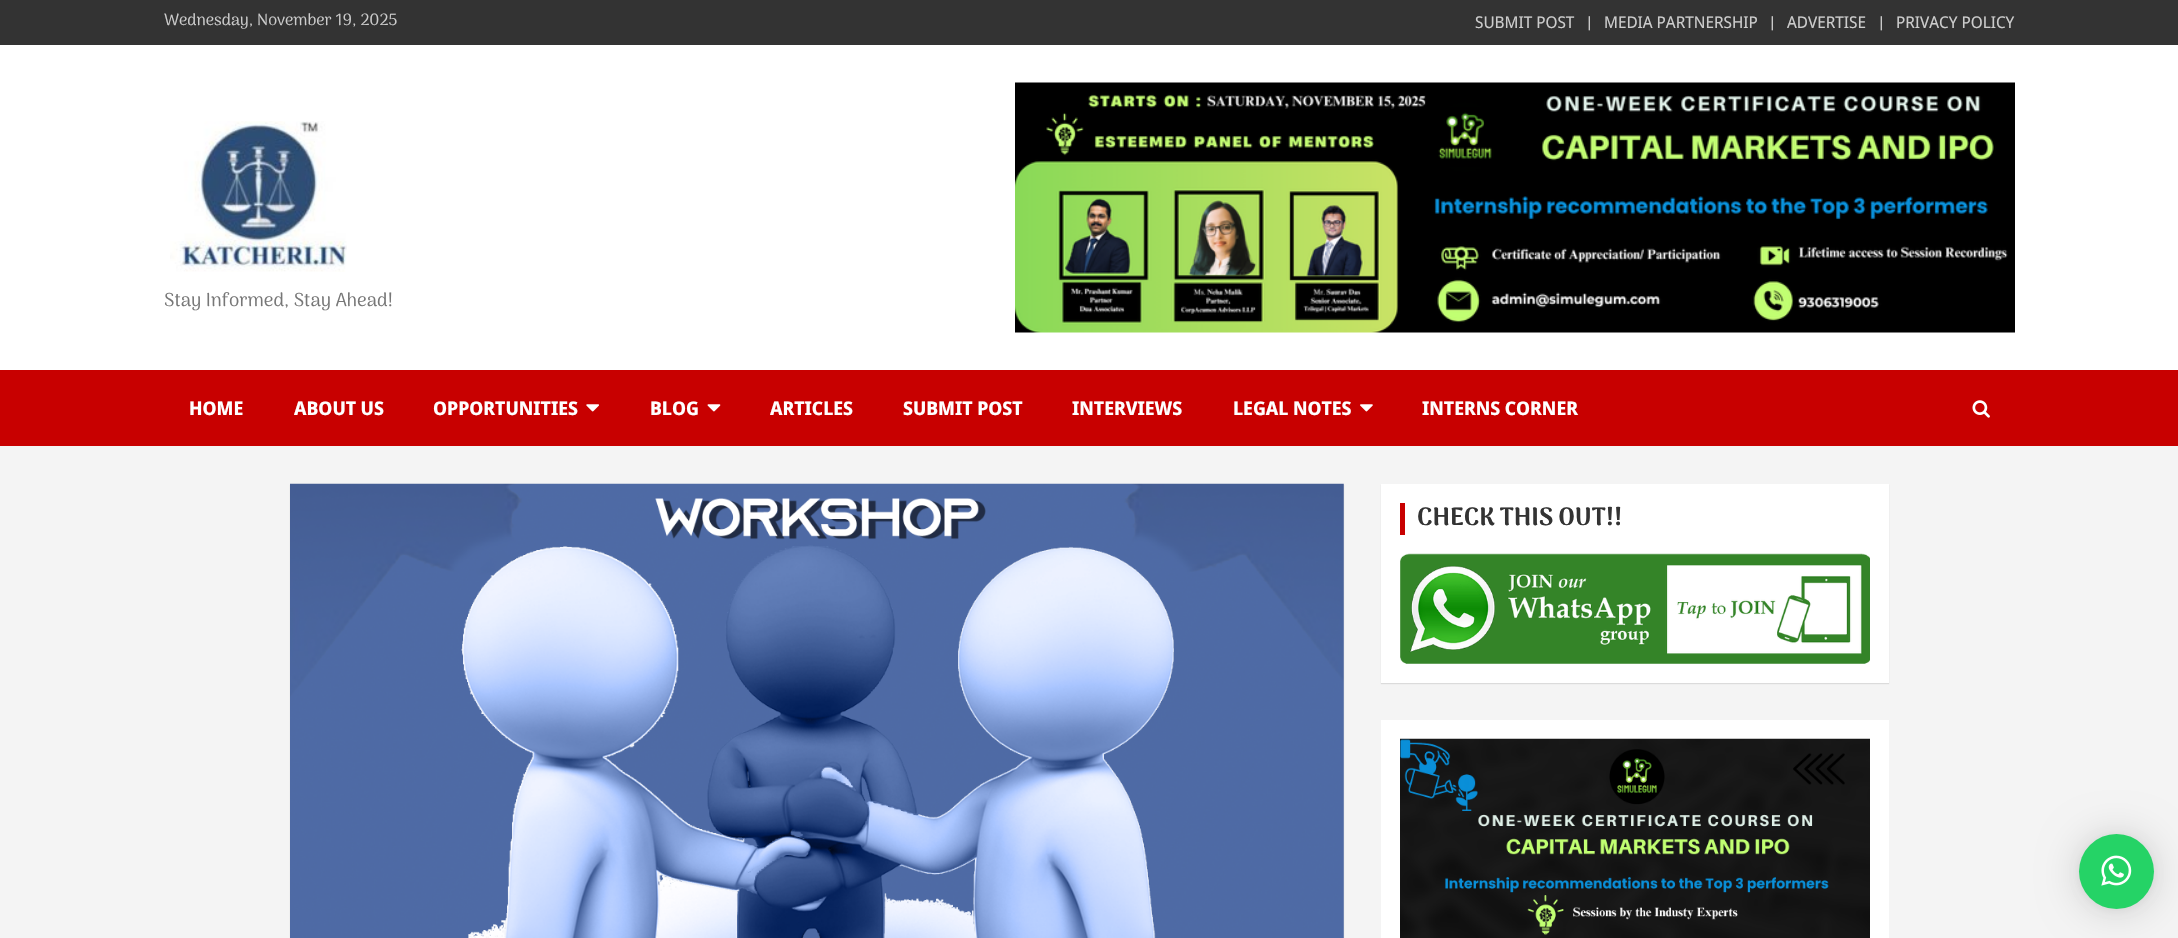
void draw(SkCanvas* canvas) {
	SkPaint paint;
	paint.setAntiAlias(true);
	canvas->clear(0xfff4f4f4);
	paint.setColor(0xff333333);
	canvas->drawRect(SkRect::MakeXYWH(0, 0, 2178, 45), paint);
	SkFont f1(fontMgr->matchFamilyStyle("Arima", SkFontStyle::Normal()), 16.25);
	f1.setSubpixel(true);
	paint.setColor(0xffcccccc);
	canvas->drawString("Wednesday, November 19, 2025", 164, 25, f1, paint);
	SkFont f2(fontMgr->matchFamilyStyle("Noto Sans Display", SkFontStyle::Normal()), 16.25);
	f2.setSubpixel(true);
	canvas->drawString("SUBMIT POST", 1475, 28, f2, paint);
	canvas->drawString("|", 1587, 28, f1, paint);
	canvas->drawString("MEDIA PARTNERSHIP", 1604, 28, f2, paint);
	canvas->drawString("|", 1770, 28, f1, paint);
	canvas->drawString("ADVERTISE", 1787, 28, f2, paint);
	canvas->drawString("|", 1879, 28, f1, paint);
	canvas->drawString("PRIVACY POLICY", 1896, 28, f2, paint);
	paint.setColor(0xffffffff);
	canvas->drawRect(SkRect::MakeXYWH(0, 45, 2178, 325), paint);
	canvas->drawImageRect(SkImages::DeferredFromEncodedData(SkData::MakeFromFileName("img1.png")), SkRect::MakeXYWH(170, 121, 177, 151), SkSamplingOptions());
	SkFont f3(fontMgr->matchFamilyStyle("Arima", SkFontStyle::Normal()), 18.75);
	f3.setSubpixel(true);
	paint.setColor(0xff777777);
	canvas->drawString("Stay Informed, Stay Ahead!", 164, 306, f3, paint);
	canvas->drawImageRect(SkImages::DeferredFromEncodedData(SkData::MakeFromFileName("img2.png")), SkRect::MakeXYWH(1015, 82, 1000, 251), SkSamplingOptions());
	paint.setColor(0xffc80000);
	canvas->drawRect(SkRect::MakeXYWH(0, 370, 2178, 76), paint);
	SkFont f4(fontMgr->matchFamilyStyle("Noto Sans Display", SkFontStyle::Bold()), 18.75);
	f4.setSubpixel(true);
	paint.setColor(0xffffffff);
	canvas->drawString("HOME", 189, 415, f4, paint);
	canvas->drawString("ABOUT US", 294, 415, f4, paint);
	canvas->drawString("OPPORTUNITIES", 433, 415, f4, paint);
	canvas->drawImageRect(SkImages::DeferredFromEncodedData(SkData::MakeFromFileName("img3.png")), SkRect::MakeXYWH(586, 404, 13, 8), SkSamplingOptions());
	canvas->drawString("BLOG", 650, 415, f4, paint);
	canvas->drawImageRect(SkImages::DeferredFromEncodedData(SkData::MakeFromFileName("img4.png")), SkRect::MakeXYWH(707, 404, 14, 8), SkSamplingOptions());
	canvas->drawString("ARTICLES", 770, 415, f4, paint);
	canvas->drawString("SUBMIT POST", 903, 415, f4, paint);
	canvas->drawString("INTERVIEWS", 1072, 415, f4, paint);
	canvas->drawString("LEGAL NOTES", 1233, 415, f4, paint);
	canvas->drawImageRect(SkImages::DeferredFromEncodedData(SkData::MakeFromFileName("img5.png")), SkRect::MakeXYWH(1360, 404, 13, 8), SkSamplingOptions());
	canvas->drawString("INTERNS CORNER", 1422, 415, f4, paint);
	canvas->drawImageRect(SkImages::DeferredFromEncodedData(SkData::MakeFromFileName("img6.png")), SkRect::MakeXYWH(1972, 400, 18, 18), SkSamplingOptions());
	paint.setColor(0x1a000000);
	paint.setMaskFilter(SkMaskFilter::MakeBlur(kNormal_SkBlurStyle, 0.5));
	canvas->drawRect(SkRect::MakeXYWH(290, 485, 1054, 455), paint);
	paint.setMaskFilter(nullptr);
	canvas->drawImageRect(SkImages::DeferredFromEncodedData(SkData::MakeFromFileName("img7.png")), SkRect::MakeXYWH(290, 483, 1054, 455), SkSamplingOptions());
	paint.setMaskFilter(SkMaskFilter::MakeBlur(kNormal_SkBlurStyle, 0.5));
	canvas->drawRect(SkRect::MakeXYWH(1381, 485, 508, 199), paint);
	paint.setMaskFilter(nullptr);
	paint.setColor(0xffffffff);
	canvas->drawRect(SkRect::MakeXYWH(1381, 484, 508, 199), paint);
	paint.setColor(0xffc80000);
	canvas->drawRect(SkRect::MakeXYWH(1400, 503, 5, 32), paint);
	SkFont f5(fontMgr->matchFamilyStyle("Arima", SkFontStyle::Bold()), 25);
	f5.setSubpixel(true);
	paint.setColor(0xff333333);
	canvas->drawString("CHECK THIS OUT!!", 1417, 525, f5, paint);
	canvas->drawImageRect(SkImages::DeferredFromEncodedData(SkData::MakeFromFileName("img8.png")), SkRect::MakeXYWH(1400, 553, 470, 111), SkSamplingOptions());
	paint.setColor(0xffffffff);
	canvas->drawRect(SkRect::MakeXYWH(1381, 720, 508, 218), paint);
	canvas->drawImageRect(SkImages::DeferredFromEncodedData(SkData::MakeFromFileName("img9.png")), SkRect::MakeXYWH(1400, 738, 470, 200), SkSamplingOptions());
	paint.setColor(0x29000000);
	paint.setMaskFilter(SkMaskFilter::MakeBlur(kNormal_SkBlurStyle, 20));
	canvas->drawRoundRect(SkRect::MakeXYWH(2079, 836, 75, 75), 37.5, 37.5, paint);
	paint.setMaskFilter(nullptr);
	paint.setColor(0x0f000000);
	paint.setMaskFilter(SkMaskFilter::MakeBlur(kNormal_SkBlurStyle, 4));
	canvas->drawRoundRect(SkRect::MakeXYWH(2079, 835, 75, 75), 37.5, 37.5, paint);
	paint.setMaskFilter(nullptr);
	paint.setColor(0xff25d366);
	canvas->drawCircle(2116.5, 871.5, 37.5, paint);
	canvas->drawImageRect(SkImages::DeferredFromEncodedData(SkData::MakeFromFileName("img10.png")), SkRect::MakeXYWH(2101, 855, 31, 31), SkSamplingOptions());
}
